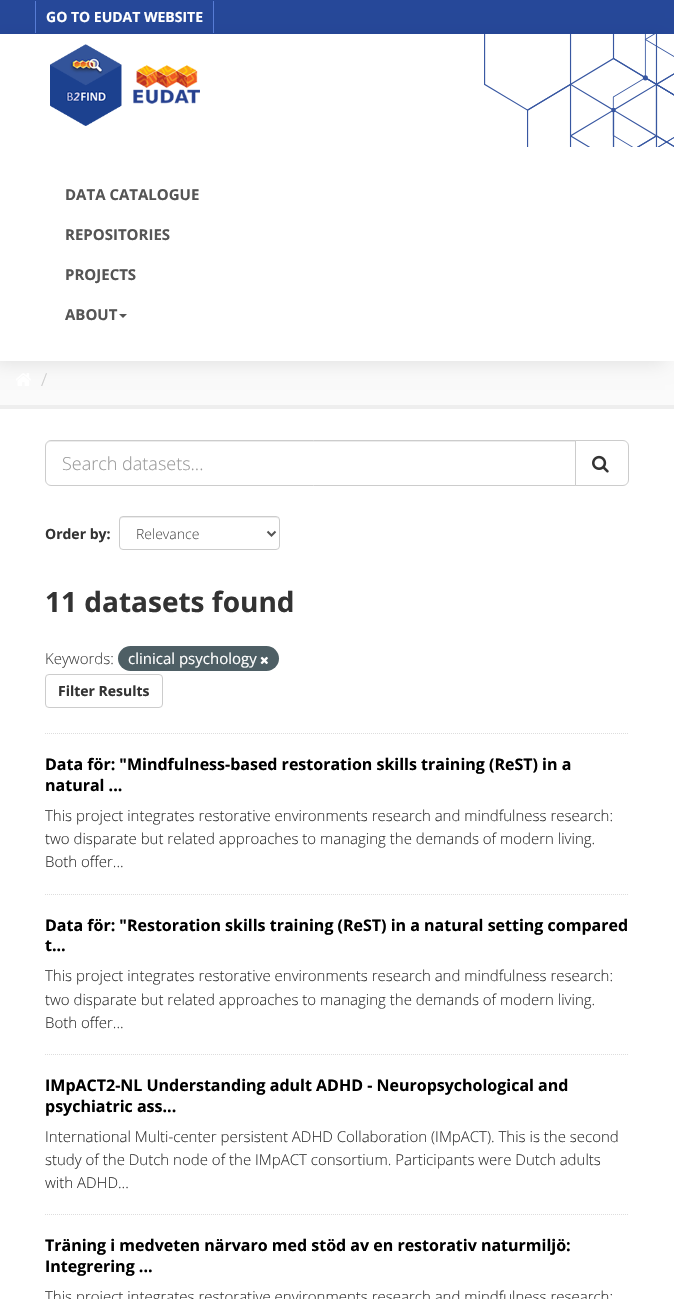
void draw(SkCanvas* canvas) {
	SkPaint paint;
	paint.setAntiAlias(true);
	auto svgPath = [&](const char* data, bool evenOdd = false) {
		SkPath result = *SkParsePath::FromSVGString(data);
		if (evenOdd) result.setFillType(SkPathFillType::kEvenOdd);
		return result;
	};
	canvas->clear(0xfffafafa);
	paint.setColor(0xff264899);
	canvas->drawRect(SkRect::MakeXYWH(0, 0, 674, 34), paint);
	paint.setColor(0x1a000000);
	paint.setMaskFilter(SkMaskFilter::MakeBlur(kNormal_SkBlurStyle, 9));
	canvas->drawRect(SkRect::MakeXYWH(-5, 40, 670, 323), paint);
	paint.setMaskFilter(nullptr);
	paint.setColor(0xff577cd5);
	canvas->drawRect(SkRect::MakeXYWH(213, 1, 1, 32), paint);
	canvas->drawRect(SkRect::MakeXYWH(35, 1, 1, 32), paint);
	SkFont f1(fontMgr->matchFamilyStyle("Open Sans", SkFontStyle::Bold()), 14);
	f1.setSubpixel(true);
	paint.setColor(0xffffffff);
	canvas->drawString("GO TO EUDAT WEBSITE", 46, 22, f1, paint);
	canvas->drawRect(SkRect::MakeXYWH(0, 34, 674, 327), paint);
	canvas->drawImageRect(SkImages::DeferredFromEncodedData(SkData::MakeFromFileName("img1.png")), SkRect::MakeXYWH(484, 34, 190, 113), SkSamplingOptions());
	canvas->drawImageRect(SkImages::DeferredFromEncodedData(SkData::MakeFromFileName("img2.png")), SkRect::MakeXYWH(50, 44, 150, 82), SkSamplingOptions());
	SkFont f2(fontMgr->matchFamilyStyle("Open Sans", SkFontStyle::Bold()), 15);
	f2.setSubpixel(true);
	paint.setColor(0xff555555);
	canvas->drawString("DATA CATALOGUE", 65, 200, f2, paint);
	canvas->drawString("REPOSITORIES", 65, 240, f2, paint);
	canvas->drawString("PROJECTS", 65, 280, f2, paint);
	canvas->drawString("ABOUT", 65, 320, f2, paint);
	canvas->drawPath(svgPath("M119 314H127L123 318Z"), paint);
	canvas->drawImageRect(SkImages::DeferredFromEncodedData(SkData::MakeFromFileName("img3.png")), SkRect::MakeXYWH(16, 373, 15, 13), SkSamplingOptions());
	SkFont f3(fontMgr->matchFamilyStyle("Open Sans", SkFontStyle(300, SkFontStyle::kNormal_Width, SkFontStyle::kUpright_Slant)), 18);
	f3.setSubpixel(true);
	paint.setColor(0xffcccccc);
	canvas->drawString("/", 41, 386, f3, paint);
	paint.setStroke(true);
	paint.setStrokeWidth(4);
	paint.setColor(0xffeeeeee);
	canvas->drawRect(SkRect::MakeXYWH(-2, 407, 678, 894), paint);
	paint.setStroke(false);
	paint.setColor(0xffffffff);
	canvas->drawRect(SkRect::MakeXYWH(0, 409, 674, 890), paint);
	paint.setStroke(true);
	paint.setStrokeWidth(1);
	paint.setColor(0xffdddddd);
	paint.setPathEffect(SkDashPathEffect::Make({{1, 1}}, 0));
	canvas->drawPath(svgPath("M45 733.5H629"), paint);
	paint.setPathEffect(nullptr);
	paint.setStroke(false);
	paint.setColor(0xffececec);
	canvas->drawPath(svgPath("M51 442H575V441H51C48 441 46 444 46 447C46 444 48 442 51 442Z"), paint);
	paint.setStroke(true);
	paint.setColor(0xffcccccc);
	canvas->drawPath(svgPath("M51 440.5H575.5V485.5H51C48 485.5 45.5 483 45.5 480V446C45.5 443 48 440.5 51 440.5Z"), paint);
	paint.setStroke(false);
	paint.setColor(0xff999999);
	canvas->drawString("Search datasets...", 62, 470, f3, paint);
	paint.setColor(0xffffffff);
	canvas->drawPath(svgPath("M575.5 440.5H623C626 440.5 628.5 443 628.5 446V480C628.5 483 626 485.5 623 485.5H575.5Z"), paint);
	paint.setStroke(true);
	paint.setColor(0xffcccccc);
	canvas->drawPath(svgPath("M575.5 440.5H623C626 440.5 628.5 443 628.5 446V480C628.5 483 626 485.5 623 485.5H575.5Z"), paint);
	canvas->drawImageRect(SkImages::DeferredFromEncodedData(SkData::MakeFromFileName("img4.png")), SkRect::MakeXYWH(592, 455, 17, 18), SkSamplingOptions());
	paint.setStroke(false);
	paint.setColor(0xff333333);
	canvas->drawString("Order by:", 45, 539, f1, paint);
	paint.setColor(0xffececec);
	canvas->drawPath(svgPath("M123 518H276C278 518 279 519 279 521C279 519 278 517 276 517H122C120 517 120 519 120 521C120 519 121 518 123 518Z"), paint);
	paint.setStroke(true);
	paint.setColor(0xffcccccc);
	canvas->drawRoundRect(SkRect::MakeXYWH(119.5, 516.5, 160, 33), 3.5, 3.5, paint);
	paint.setStrokeWidth(2);
	paint.setColor(0xff555555);
	canvas->drawPath(svgPath("M267.5 531.5L271.5 535.5L275.5 531.5"), paint);
	SkFont f4(fontMgr->matchFamilyStyle("Open Sans", SkFontStyle(300, SkFontStyle::kNormal_Width, SkFontStyle::kUpright_Slant)), 14);
	f4.setSubpixel(true);
	paint.setStroke(false);
	canvas->drawString("Relevance", 136, 539, f4, paint);
	SkFont f5(fontMgr->matchFamilyStyle("Open Sans", SkFontStyle::Bold()), 28);
	f5.setSubpixel(true);
	paint.setColor(0xff333333);
	canvas->drawString("11 datasets found", 45, 612, f5, paint);
	SkFont f6(fontMgr->matchFamilyStyle("Open Sans", SkFontStyle(300, SkFontStyle::kNormal_Width, SkFontStyle::kUpright_Slant)), 15);
	f6.setSubpixel(true);
	paint.setColor(0xff444444);
	canvas->drawString("Keywords:", 45, 664, f6, paint);
	paint.setColor(0xff4e5f65);
	canvas->drawRoundRect(SkRect::MakeXYWH(118, 646, 161, 25), 12.5, 12.5, paint);
	SkFont f7(fontMgr->matchFamilyStyle("Open Sans", SkFontStyle::Normal()), 15);
	f7.setSubpixel(true);
	paint.setColor(0xffffffff);
	canvas->drawString("clinical psychology", 128, 664, f7, paint);
	canvas->drawImageRect(SkImages::DeferredFromEncodedData(SkData::MakeFromFileName("img5.png")), SkRect::MakeXYWH(260, 656, 8, 9), SkSamplingOptions());
	paint.setStroke(true);
	paint.setStrokeWidth(1);
	paint.setColor(0xffcccccc);
	canvas->drawRoundRect(SkRect::MakeXYWH(45.5, 674.5, 117, 33), 3.5, 3.5, paint);
	paint.setStroke(false);
	paint.setColor(0xff333333);
	canvas->drawString("Filter Results", 58, 696, f1, paint);
	paint.setStroke(true);
	paint.setColor(0xffdddddd);
	paint.setPathEffect(SkDashPathEffect::Make({{1, 1}}, 0));
	canvas->drawPath(svgPath("M45 894.5H629"), paint);
	paint.setPathEffect(nullptr);
	SkFont f8(fontMgr->matchFamilyStyle("Open Sans", SkFontStyle::Bold()), 16);
	f8.setSubpixel(true);
	paint.setStroke(false);
	paint.setColor(0xff000000);
	canvas->drawString("Data för: \"Mindfulness-based restoration skills training (ReST) in a", 45, 770, f8, paint);
	canvas->drawString("natural ...", 45, 791, f8, paint);
	paint.setColor(0xff333333);
	canvas->drawString("This project integrates restorative environments research and mindfulness research:", 45, 821, f6, paint);
	canvas->drawString("two disparate but related approaches to managing the demands of modern living.", 45, 844, f6, paint);
	canvas->drawString("Both offer...", 45, 867, f6, paint);
	paint.setStroke(true);
	paint.setColor(0xffdddddd);
	paint.setPathEffect(SkDashPathEffect::Make({{1, 1}}, 0));
	canvas->drawPath(svgPath("M45 1054.5H629"), paint);
	paint.setPathEffect(nullptr);
	paint.setStroke(false);
	paint.setColor(0xff000000);
	canvas->drawString("Data för: \"Restoration skills training (ReST) in a natural setting compared", 45, 931, f8, paint);
	canvas->drawString("t...", 45, 951, f8, paint);
	paint.setColor(0xff333333);
	canvas->drawString("This project integrates restorative environments research and mindfulness research:", 45, 981, f6, paint);
	canvas->drawString("two disparate but related approaches to managing the demands of modern living.", 45, 1005, f6, paint);
	canvas->drawString("Both offer...", 45, 1028, f6, paint);
	paint.setStroke(true);
	paint.setColor(0xffdddddd);
	paint.setPathEffect(SkDashPathEffect::Make({{1, 1}}, 0));
	canvas->drawPath(svgPath("M45 1214.5H629"), paint);
	paint.setPathEffect(nullptr);
	paint.setStroke(false);
	paint.setColor(0xff000000);
	canvas->drawString("IMpACT2-NL Understanding adult ADHD - Neuropsychological and", 45, 1091, f8, paint);
	canvas->drawString("psychiatric ass...", 45, 1112, f8, paint);
	paint.setColor(0xff333333);
	canvas->drawString("International Multi-center persistent ADHD Collaboration (IMpACT). This is the second", 45, 1142, f6, paint);
	canvas->drawString("study of the Dutch node of the IMpACT consortium. Participants were Dutch adults", 45, 1165, f6, paint);
	canvas->drawString("with ADHD...", 45, 1188, f6, paint);
	paint.setColor(0xff000000);
	canvas->drawString("Träning i medveten närvaro med stöd av en restorativ naturmiljö:", 45, 1251, f8, paint);
	canvas->drawString("Integrering ...", 45, 1272, f8, paint);
	paint.setColor(0xff333333);
	canvas->drawString("This project integrates restorative environments research and mindfulness research:", 45, 1302, f6, paint);
}
